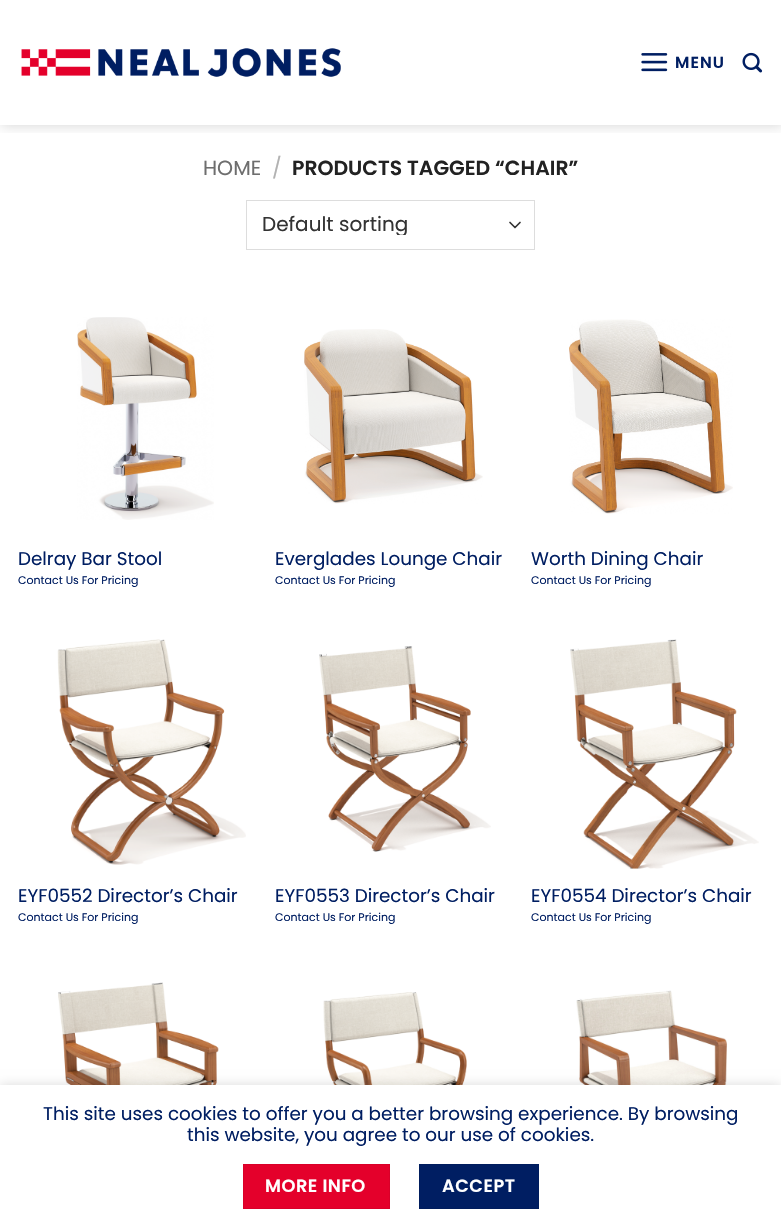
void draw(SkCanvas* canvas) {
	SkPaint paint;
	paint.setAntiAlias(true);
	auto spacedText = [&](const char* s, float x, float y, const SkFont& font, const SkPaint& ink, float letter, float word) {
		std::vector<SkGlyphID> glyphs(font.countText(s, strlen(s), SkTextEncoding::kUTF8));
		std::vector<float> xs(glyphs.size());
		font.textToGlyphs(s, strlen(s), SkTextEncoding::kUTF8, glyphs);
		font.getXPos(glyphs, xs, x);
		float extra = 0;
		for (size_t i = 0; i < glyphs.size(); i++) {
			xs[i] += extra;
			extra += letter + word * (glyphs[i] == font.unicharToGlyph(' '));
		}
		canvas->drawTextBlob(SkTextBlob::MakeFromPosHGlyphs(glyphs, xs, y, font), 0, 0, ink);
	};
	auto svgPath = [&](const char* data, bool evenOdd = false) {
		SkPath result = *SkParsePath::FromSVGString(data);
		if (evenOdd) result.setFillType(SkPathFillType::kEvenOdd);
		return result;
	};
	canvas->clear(0xffffffff);
	canvas->save();
	canvas->clipRect(SkRect::MakeXYWH(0, 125, 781, 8));
	paint.setColor(0x26000000);
	paint.setMaskFilter(SkMaskFilter::MakeBlur(kNormal_SkBlurStyle, 6));
	canvas->drawRect(SkRect::MakeXYWH(1, 1, 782, 125), paint);
	paint.setMaskFilter(nullptr);
	canvas->restore();
	canvas->drawImageRect(SkImages::DeferredFromEncodedData(SkData::MakeFromFileName("img1.png")), SkRect::MakeXYWH(21, 48, 320, 29), SkSamplingOptions());
	canvas->drawImageRect(SkImages::DeferredFromEncodedData(SkData::MakeFromFileName("img2.png")), SkRect::MakeXYWH(641, 53, 27, 19), SkSamplingOptions());
	SkFont f1(fontMgr->matchFamilyStyle("Poppins", SkFontStyle(600, SkFontStyle::kNormal_Width, SkFontStyle::kUpright_Slant)), 16);
	f1.setSubpixel(true);
	paint.setColor(0xff001e62);
	spacedText("MENU", 675, 68, f1, paint, 1, 0);
	canvas->drawImageRect(SkImages::DeferredFromEncodedData(SkData::MakeFromFileName("img3.png")), SkRect::MakeXYWH(742, 52, 21, 21), SkSamplingOptions());
	SkFont f2(fontMgr->matchFamilyStyle("Poppins", SkFontStyle::Normal()), 20.4);
	f2.setSubpixel(true);
	paint.setColor(0xff6e6e6e);
	canvas->drawString("HOME", 203, 175, f2, paint);
	paint.setColor(0xffb2b2b2);
	canvas->drawString("/", 272, 175, f2, paint);
	SkFont f3(fontMgr->matchFamilyStyle("Poppins", SkFontStyle(600, SkFontStyle::kNormal_Width, SkFontStyle::kUpright_Slant)), 20.4);
	f3.setSubpixel(true);
	paint.setColor(0xff222222);
	canvas->drawString("PRODUCTS TAGGED “CHAIR”", 292, 175, f3, paint);
	paint.setStroke(true);
	paint.setStrokeWidth(1.7);
	paint.setStrokeCap(SkPaint::kRound_Cap);
	paint.setStrokeJoin(SkPaint::kRound_Join);
	paint.setColor(0xff333333);
	canvas->drawPath(svgPath("M510 222.5L515 227.5L520 222.5"), paint);
	paint.setStrokeWidth(1);
	paint.setStrokeCap(SkPaint::kButt_Cap);
	paint.setStrokeJoin(SkPaint::kMiter_Join);
	paint.setColor(0xffdddddd);
	canvas->drawRect(SkRect::MakeXYWH(246.5, 200.5, 288, 49), paint);
	canvas->save();
	canvas->clipRect(SkRect::MakeXYWH(263, 214, 243, 21));
	SkFont f4(fontMgr->matchFamilyStyle("Poppins", SkFontStyle::Normal()), 20);
	f4.setSubpixel(true);
	paint.setStroke(false);
	paint.setColor(0xff333333);
	canvas->drawString("Default sorting", 262, 231, f4, paint);
	canvas->restore();
	canvas->drawImageRect(SkImages::DeferredFromEncodedData(SkData::MakeFromFileName("img4.png")), SkRect::MakeXYWH(77, 317, 137, 203), SkSamplingOptions());
	SkFont f5(fontMgr->matchFamilyStyle("Poppins", SkFontStyle::Normal()), 18.35);
	f5.setSubpixel(true);
	paint.setColor(0xff001e62);
	canvas->drawString("Delray Bar Stool", 18, 565, f5, paint);
	SkFont f6(fontMgr->matchFamilyStyle("Poppins", SkFontStyle::Normal()), 11);
	f6.setSubpixel(true);
	canvas->drawString("Contact Us For Pricing", 18, 584, f6, paint);
	canvas->drawImageRect(SkImages::DeferredFromEncodedData(SkData::MakeFromFileName("img5.png")), SkRect::MakeXYWH(304, 329, 179, 175), SkSamplingOptions());
	canvas->drawString("Everglades Lounge Chair", 275, 565, f5, paint);
	canvas->drawString("Contact Us For Pricing", 275, 584, f6, paint);
	canvas->drawImageRect(SkImages::DeferredFromEncodedData(SkData::MakeFromFileName("img6.png")), SkRect::MakeXYWH(569, 319, 164, 195), SkSamplingOptions());
	canvas->drawString("Worth Dining Chair", 531, 565, f5, paint);
	canvas->drawString("Contact Us For Pricing", 531, 584, f6, paint);
	canvas->drawImageRect(SkImages::DeferredFromEncodedData(SkData::MakeFromFileName("img7.png")), SkRect::MakeXYWH(57, 639, 189, 226), SkSamplingOptions());
	canvas->drawString("EYF0552 Director’s Chair", 18, 902, f5, paint);
	canvas->drawString("Contact Us For Pricing", 18, 921, f6, paint);
	canvas->drawImageRect(SkImages::DeferredFromEncodedData(SkData::MakeFromFileName("img8.png")), SkRect::MakeXYWH(319, 646, 172, 206), SkSamplingOptions());
	canvas->drawString("EYF0553 Director’s Chair", 275, 902, f5, paint);
	canvas->drawString("Contact Us For Pricing", 275, 921, f6, paint);
	canvas->drawImageRect(SkImages::DeferredFromEncodedData(SkData::MakeFromFileName("img9.png")), SkRect::MakeXYWH(570, 639, 189, 230), SkSamplingOptions());
	canvas->drawString("EYF0554 Director’s Chair", 531, 902, f5, paint);
	canvas->drawString("Contact Us For Pricing", 531, 921, f6, paint);
	canvas->drawImageRect(SkImages::DeferredFromEncodedData(SkData::MakeFromFileName("img10.png")), SkRect::MakeXYWH(58, 982, 182, 103), SkSamplingOptions());
	canvas->drawImageRect(SkImages::DeferredFromEncodedData(SkData::MakeFromFileName("img11.png")), SkRect::MakeXYWH(323, 992, 162, 93), SkSamplingOptions());
	canvas->drawImageRect(SkImages::DeferredFromEncodedData(SkData::MakeFromFileName("img12.png")), SkRect::MakeXYWH(576, 990, 171, 95), SkSamplingOptions());
	paint.setColor(0x24000000);
	paint.setMaskFilter(SkMaskFilter::MakeBlur(kNormal_SkBlurStyle, 5.5));
	canvas->drawRect(SkRect::MakeXYWH(0, 1085, 781, 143), paint);
	paint.setMaskFilter(nullptr);
	paint.setColor(0xffffffff);
	canvas->drawRect(SkRect::MakeXYWH(0, 1085, 781, 142), paint);
	paint.setColor(0xff001e62);
	canvas->drawString("This site uses cookies to offer you a better browsing experience. By browsing", 43, 1120, f5, paint);
	canvas->drawString("this website, you agree to our use of cookies.", 187, 1141, f5, paint);
	paint.setColor(0xffe4002b);
	canvas->drawRect(SkRect::MakeXYWH(243.5, 1164.5, 146, 44), paint);
	paint.setStroke(true);
	paint.setColor(0xffd90029);
	canvas->drawRect(SkRect::MakeXYWH(243.5, 1164.5, 146, 44), paint);
	SkFont f7(fontMgr->matchFamilyStyle("Poppins", SkFontStyle(600, SkFontStyle::kNormal_Width, SkFontStyle::kUpright_Slant)), 17.75);
	f7.setSubpixel(true);
	paint.setStroke(false);
	paint.setColor(0xffffffff);
	spacedText("MORE INFO", 265, 1192, f7, paint, 0.5, 0);
	paint.setColor(0xff001e62);
	canvas->drawRect(SkRect::MakeXYWH(419.5, 1164.5, 119, 44), paint);
	paint.setStroke(true);
	paint.setColor(0xff001d5d);
	canvas->drawRect(SkRect::MakeXYWH(419.5, 1164.5, 119, 44), paint);
	paint.setStroke(false);
	paint.setColor(0xffffffff);
	spacedText("ACCEPT", 442, 1192, f7, paint, 0.5, 0);
}
